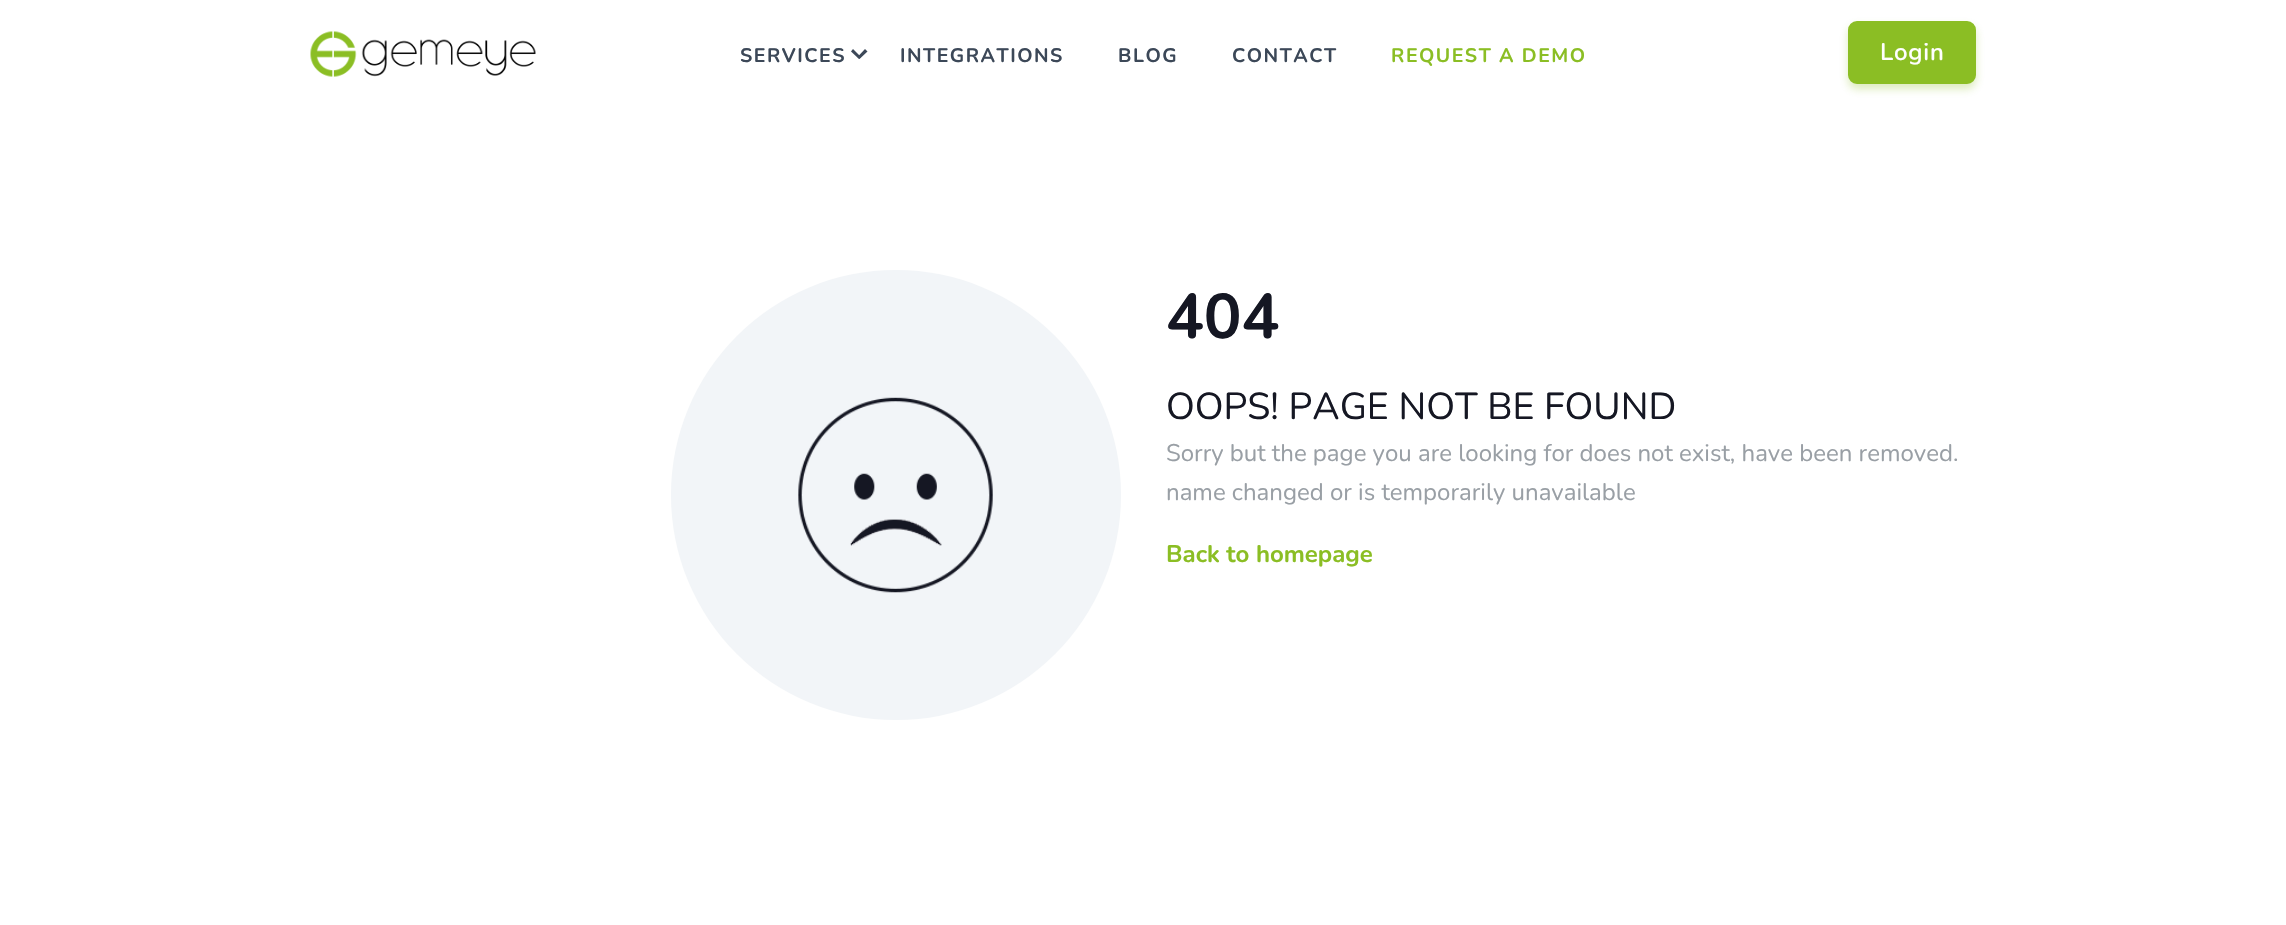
void draw(SkCanvas* canvas) {
	SkPaint paint;
	paint.setAntiAlias(true);
	auto spacedText = [&](const char* s, float x, float y, const SkFont& font, const SkPaint& ink, float letter, float word) {
		std::vector<SkGlyphID> glyphs(font.countText(s, strlen(s), SkTextEncoding::kUTF8));
		std::vector<float> xs(glyphs.size());
		font.textToGlyphs(s, strlen(s), SkTextEncoding::kUTF8, glyphs);
		font.getXPos(glyphs, xs, x);
		float extra = 0;
		for (size_t i = 0; i < glyphs.size(); i++) {
			xs[i] += extra;
			extra += letter + word * (glyphs[i] == font.unicharToGlyph(' '));
		}
		canvas->drawTextBlob(SkTextBlob::MakeFromPosHGlyphs(glyphs, xs, y, font), 0, 0, ink);
	};
	auto svgPath = [&](const char* data, bool evenOdd = false) {
		SkPath result = *SkParsePath::FromSVGString(data);
		if (evenOdd) result.setFillType(SkPathFillType::kEvenOdd);
		return result;
	};
	canvas->clear(0xffffffff);
	canvas->drawImageRect(SkImages::DeferredFromEncodedData(SkData::MakeFromFileName("img1.png")), SkRect::MakeXYWH(310, 31, 226, 46), SkSamplingOptions());
	SkFont f1(fontMgr->matchFamilyStyle("Nunito", SkFontStyle::Bold()), 19.5);
	f1.setSubpixel(true);
	paint.setColor(0xff3c4858);
	spacedText("SERVICES", 740, 62, f1, paint, 1.5, 0);
	canvas->drawPath(svgPath("M865 49L867.5 51.5L859.5 59L857.5 57Z"), paint);
	canvas->drawPath(svgPath("M853 49L861 57L859 59L851 51.5Z"), paint);
	spacedText("INTEGRATIONS", 900, 62, f1, paint, 1.5, 0);
	spacedText("BLOG", 1118, 62, f1, paint, 1.5, 0);
	spacedText("CONTACT", 1232, 62, f1, paint, 1.5, 0);
	paint.setColor(0xff8bbe24);
	spacedText("REQUEST A DEMO", 1391, 62, f1, paint, 1.5, 0);
	paint.setColor(0x4d8bbe24);
	paint.setMaskFilter(SkMaskFilter::MakeBlur(kNormal_SkBlurStyle, 4));
	canvas->drawRoundRect(SkRect::MakeXYWH(1848, 26, 128, 63), 9, 9, paint);
	paint.setMaskFilter(nullptr);
	paint.setColor(0xff8bbe24);
	canvas->drawRoundRect(SkRect::MakeXYWH(1849, 22, 126, 61), 8, 8, paint);
	paint.setStroke(true);
	paint.setStrokeWidth(2);
	canvas->drawRoundRect(SkRect::MakeXYWH(1849, 22, 126, 61), 8, 8, paint);
	SkFont f2(fontMgr->matchFamilyStyle("Nunito", SkFontStyle(600, SkFontStyle::kNormal_Width, SkFontStyle::kUpright_Slant)), 24);
	f2.setSubpixel(true);
	paint.setStroke(false);
	paint.setColor(0xffffffff);
	spacedText("Login", 1880, 60, f2, paint, 0.75, 0);
	paint.setColor(0xfff2f5f8);
	canvas->drawCircle(896, 495, 225, paint);
	canvas->drawImageRect(SkImages::DeferredFromEncodedData(SkData::MakeFromFileName("img2.png")), SkRect::MakeXYWH(798, 397, 195, 196), SkSamplingOptions());
	SkFont f3(fontMgr->matchFamilyStyle("Nunito", SkFontStyle::Bold()), 63);
	f3.setSubpixel(true);
	paint.setColor(0xff151723);
	canvas->drawString("404", 1166, 338, f3, paint);
	SkFont f4(fontMgr->matchFamilyStyle("Nunito", SkFontStyle::Normal()), 37.5);
	f4.setSubpixel(true);
	canvas->drawString("OOPS! PAGE NOT BE FOUND", 1166, 419, f4, paint);
	SkFont f5(fontMgr->matchFamilyStyle("Nunito", SkFontStyle::Normal()), 24);
	f5.setSubpixel(true);
	paint.setColor(0xff999fa5);
	canvas->drawString("Sorry but the page you are looking for does not exist, have been removed.", 1166, 461, f5, paint);
	canvas->drawString("name changed or is temporarily unavailable", 1166, 500, f5, paint);
	SkFont f6(fontMgr->matchFamilyStyle("Nunito", SkFontStyle::Bold()), 24);
	f6.setSubpixel(true);
	paint.setColor(0xff8bbe24);
	canvas->drawString("Back to homepage", 1166, 562, f6, paint);
}
